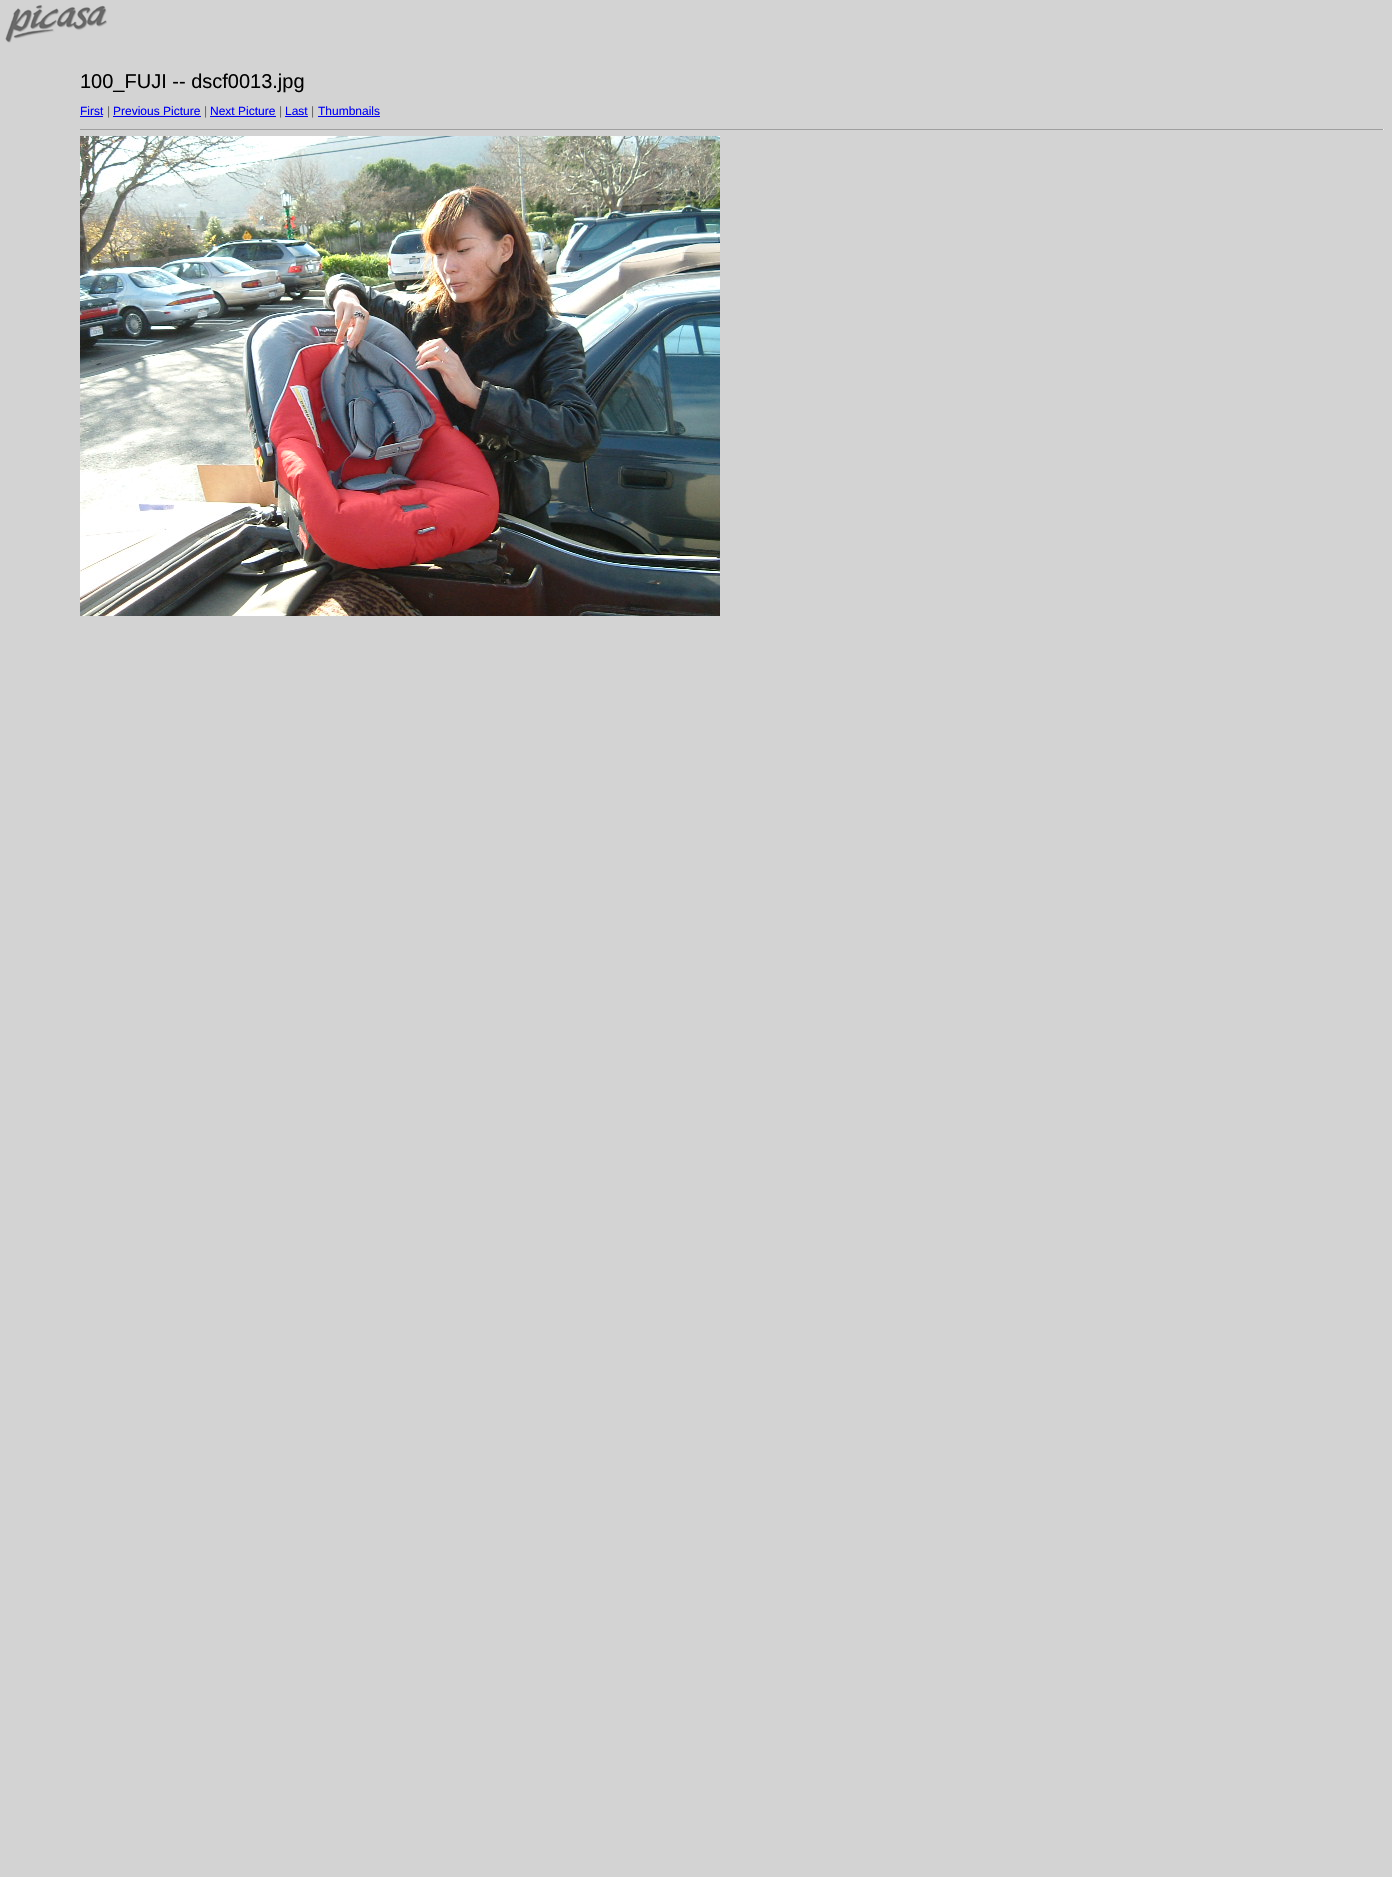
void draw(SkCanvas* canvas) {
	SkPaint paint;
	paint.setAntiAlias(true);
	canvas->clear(0xffd3d3d3);
	canvas->drawImageRect(SkImages::DeferredFromEncodedData(SkData::MakeFromFileName("img1.png")), SkRect::MakeXYWH(5, 5, 102, 38), SkSamplingOptions());
	SkFont f1(fontMgr->matchFamilyStyle("Liberation Sans", SkFontStyle::Normal()), 20);
	f1.setSubpixel(true);
	paint.setColor(0xff000000);
	canvas->drawString("100_FUJI -- dscf0013.jpg", 80, 88, f1, paint);
	SkFont f2(fontMgr->matchFamilyStyle("Liberation Sans", SkFontStyle::Normal()), 12);
	f2.setSubpixel(true);
	paint.setColor(0xff0000ee);
	canvas->drawString("First", 80, 115, f2, paint);
	canvas->drawRect(SkRect::MakeXYWH(80, 116, 23, 1), paint);
	paint.setColor(0xff666666);
	canvas->drawString("|", 107, 115, f2, paint);
	paint.setColor(0xff0000ee);
	canvas->drawString("Previous Picture", 113, 115, f2, paint);
	canvas->drawRect(SkRect::MakeXYWH(113, 116, 88, 1), paint);
	paint.setColor(0xff666666);
	canvas->drawString("|", 204, 115, f2, paint);
	paint.setColor(0xff0000ee);
	canvas->drawString("Next Picture", 210, 115, f2, paint);
	canvas->drawRect(SkRect::MakeXYWH(210, 116, 66, 1), paint);
	paint.setColor(0xff666666);
	canvas->drawString("|", 279, 115, f2, paint);
	paint.setColor(0xff0000ee);
	canvas->drawString("Last", 285, 115, f2, paint);
	canvas->drawRect(SkRect::MakeXYWH(285, 116, 23, 1), paint);
	paint.setColor(0xff666666);
	canvas->drawString("|", 311, 115, f2, paint);
	paint.setColor(0xff0000ee);
	canvas->drawString("Thumbnails", 318, 115, f2, paint);
	canvas->drawRect(SkRect::MakeXYWH(318, 116, 62, 1), paint);
	paint.setColor(0xff9f9f9f);
	canvas->drawRect(SkRect::MakeXYWH(80, 129, 1304, 1), paint);
	paint.setColor(0xffeeeeee);
	canvas->drawRect(SkRect::MakeXYWH(1383, 129, 1, 1), paint);
	canvas->drawImageRect(SkImages::DeferredFromEncodedData(SkData::MakeFromFileName("img2.png")), SkRect::MakeXYWH(80, 136, 640, 480), SkSamplingOptions());
}
